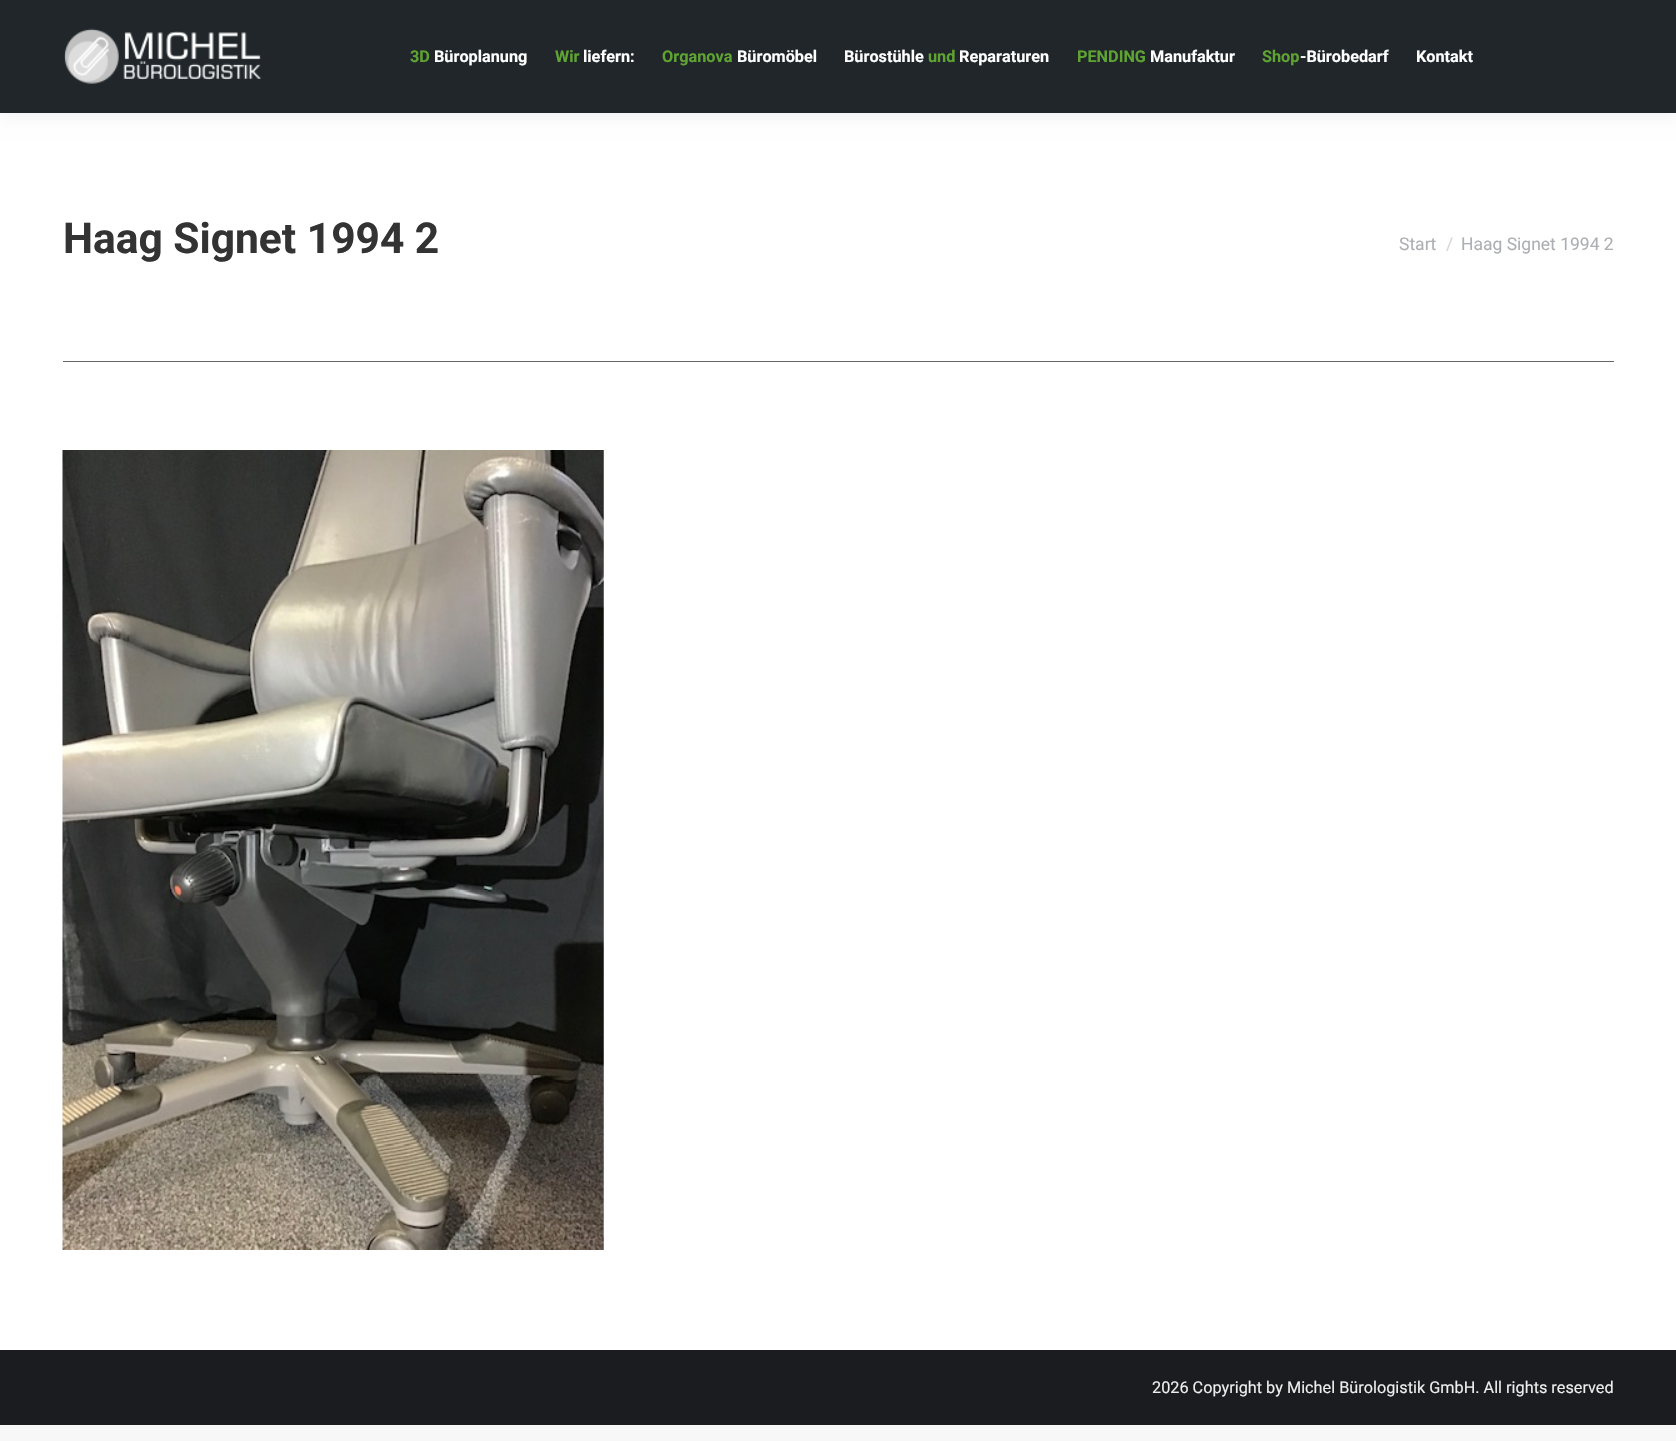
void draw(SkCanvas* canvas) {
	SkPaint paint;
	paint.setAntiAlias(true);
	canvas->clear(0xfff7f7f7);
	paint.setColor(0xffffffff);
	canvas->drawRect(SkRect::MakeXYWH(0, 113, 1676, 1237), paint);
	paint.setColor(0x12000000);
	paint.setMaskFilter(SkMaskFilter::MakeBlur(kNormal_SkBlurStyle, 9.5));
	canvas->drawRect(SkRect::MakeXYWH(-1, -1, 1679, 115), paint);
	paint.setMaskFilter(nullptr);
	paint.setColor(0xff20262a);
	canvas->drawRect(SkRect::MakeXYWH(0, 0, 1676, 113), paint);
	canvas->drawImageRect(SkImages::DeferredFromEncodedData(SkData::MakeFromFileName("img1.png")), SkRect::MakeXYWH(64, 28, 198, 56), SkSamplingOptions());
	SkFont f1(fontMgr->matchFamilyStyle("Roboto", SkFontStyle::Bold()), 16.25);
	f1.setSubpixel(true);
	paint.setColor(0xff5fa432);
	canvas->drawString("3D", 410, 62, f1, paint);
	paint.setColor(0xffffffff);
	canvas->drawString("Büroplanung", 434, 62, f1, paint);
	paint.setColor(0xff5fa432);
	canvas->drawString("Wir", 555, 62, f1, paint);
	paint.setColor(0xffffffff);
	canvas->drawString("liefern:", 583, 62, f1, paint);
	paint.setColor(0xff5fa432);
	canvas->drawString("Organova", 662, 62, f1, paint);
	paint.setColor(0xffffffff);
	canvas->drawString("Büromöbel", 737, 62, f1, paint);
	canvas->drawString("Bürostühle", 844, 62, f1, paint);
	paint.setColor(0xff5fa432);
	canvas->drawString("und", 928, 62, f1, paint);
	paint.setColor(0xffffffff);
	canvas->drawString("Reparaturen", 959, 62, f1, paint);
	paint.setColor(0xff5fa432);
	canvas->drawString("PENDING", 1077, 62, f1, paint);
	paint.setColor(0xffffffff);
	canvas->drawString("Manufaktur", 1150, 62, f1, paint);
	paint.setColor(0xff5fa432);
	canvas->drawString("Shop", 1262, 62, f1, paint);
	paint.setColor(0xffffffff);
	canvas->drawString("-Bürobedarf", 1300, 62, f1, paint);
	canvas->drawString("Kontakt", 1416, 62, f1, paint);
	SkFont f2(fontMgr->matchFamilyStyle("Roboto", SkFontStyle::Bold()), 42.5);
	f2.setSubpixel(true);
	paint.setColor(0xff333333);
	canvas->drawString("Haag Signet 1994 2", 63, 253, f2, paint);
	SkFont f3(fontMgr->matchFamilyStyle("Roboto", SkFontStyle::Normal()), 17.5);
	f3.setSubpixel(true);
	paint.setColor(0xffadafb3);
	canvas->drawString("Start", 1399, 250, f3, paint);
	paint.setColor(0xffd6d7d9);
	canvas->drawString("/", 1446, 250, f3, paint);
	paint.setColor(0xffadafb3);
	canvas->drawString("Haag Signet 1994 2", 1461, 250, f3, paint);
	paint.setColor(0xff666666);
	canvas->drawRect(SkRect::MakeXYWH(63, 361, 1551, 1), paint);
	canvas->drawImageRect(SkImages::DeferredFromEncodedData(SkData::MakeFromFileName("img2.png")), SkRect::MakeXYWH(62, 450, 542, 800), SkSamplingOptions());
	paint.setColor(0xff1a1c20);
	canvas->drawRect(SkRect::MakeXYWH(0, 1350, 1676, 75), paint);
	SkFont f4(fontMgr->matchFamilyStyle("Roboto", SkFontStyle::Normal()), 16.25);
	f4.setSubpixel(true);
	paint.setColor(0xffeeeeee);
	canvas->drawString("2026 Copyright by Michel Bürologistik GmbH. All rights reserved", 1152, 1393, f4, paint);
}
